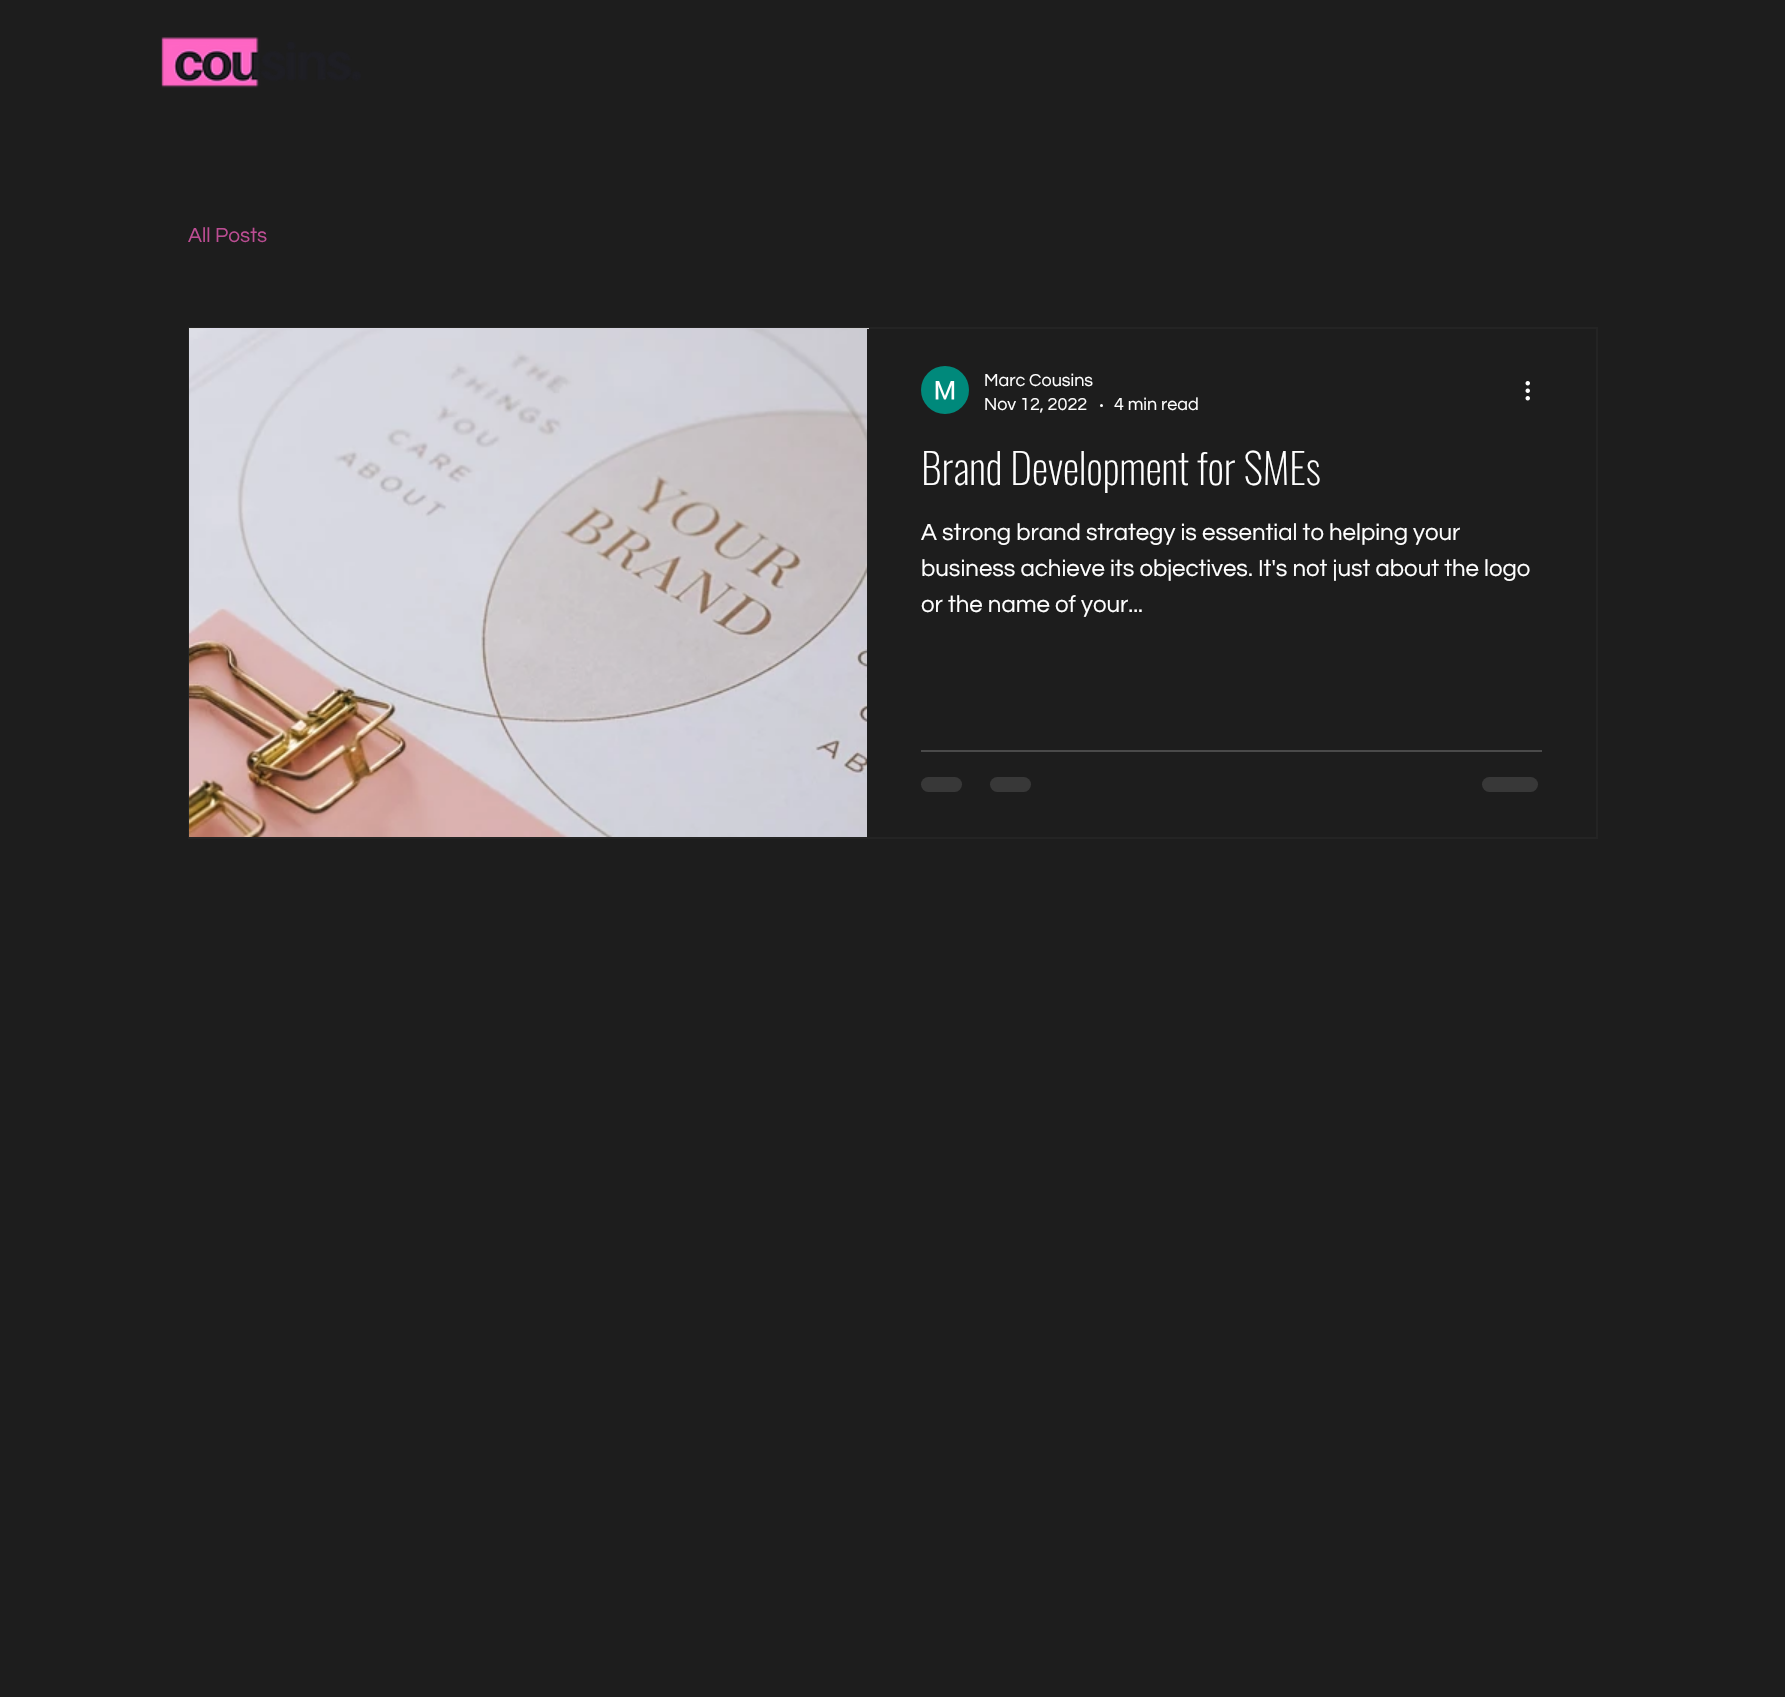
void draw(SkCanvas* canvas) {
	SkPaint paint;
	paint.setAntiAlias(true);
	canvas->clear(0xff1d1d1d);
	canvas->drawImageRect(SkImages::DeferredFromEncodedData(SkData::MakeFromFileName("img1.png")), SkRect::MakeXYWH(161, 37, 200, 51), SkSamplingOptions());
	SkFont f1(fontMgr->matchFamilyStyle("Questrial", SkFontStyle::Normal()), 21);
	f1.setSubpixel(true);
	paint.setColor(0xffbc4d93);
	canvas->drawString("All Posts", 188, 242, f1, paint);
	paint.setStroke(true);
	paint.setStrokeWidth(2);
	paint.setColor(0xff242424);
	canvas->drawRect(SkRect::MakeXYWH(189, 328, 1408, 510), paint);
	canvas->drawImageRect(SkImages::DeferredFromEncodedData(SkData::MakeFromFileName("img2.png")), SkRect::MakeXYWH(189, 328, 680, 1), SkSamplingOptions());
	canvas->drawImageRect(SkImages::DeferredFromEncodedData(SkData::MakeFromFileName("img3.png")), SkRect::MakeXYWH(189, 329, 678, 508), SkSamplingOptions());
	canvas->drawImageRect(SkImages::DeferredFromEncodedData(SkData::MakeFromFileName("img4.png")), SkRect::MakeXYWH(921, 366, 48, 48), SkSamplingOptions());
	SkFont f2(fontMgr->matchFamilyStyle("Questrial", SkFontStyle::Normal()), 18);
	f2.setSubpixel(true);
	paint.setStroke(false);
	paint.setColor(0xffffffff);
	canvas->drawString("Marc Cousins", 984, 386, f2, paint);
	canvas->drawString("Nov 12, 2022", 984, 410, f2, paint);
	canvas->drawCircle(1101.5, 405.5, 1.5, paint);
	canvas->drawString("4 min read", 1114, 410, f2, paint);
	canvas->drawImageRect(SkImages::DeferredFromEncodedData(SkData::MakeFromFileName("img5.png")), SkRect::MakeXYWH(1525, 381, 5, 20), SkSamplingOptions());
	SkFont f3(fontMgr->matchFamilyStyle("Oswald", SkFontStyle(200, SkFontStyle::kNormal_Width, SkFontStyle::kUpright_Slant)), 42);
	f3.setSubpixel(true);
	canvas->drawString("Brand Development for SMEs", 921, 485, f3, paint);
	SkFont f4(fontMgr->matchFamilyStyle("Questrial", SkFontStyle::Normal()), 24);
	f4.setSubpixel(true);
	canvas->drawString("A strong brand strategy is essential to helping your", 921, 540, f4, paint);
	canvas->drawString("business achieve its objectives. It's not just about the logo", 921, 576, f4, paint);
	canvas->drawString("or the name of your...", 921, 612, f4, paint);
	paint.setColor(0xff4a4a4a);
	canvas->drawRect(SkRect::MakeXYWH(921, 750, 621, 2), paint);
	paint.setColor(0xff383838);
	canvas->drawRoundRect(SkRect::MakeXYWH(921, 777, 41, 15), 7.5, 7.5, paint);
	canvas->drawRoundRect(SkRect::MakeXYWH(990, 777, 41, 15), 7.5, 7.5, paint);
	canvas->drawRoundRect(SkRect::MakeXYWH(1482, 777, 56, 15), 7.5, 7.5, paint);
}
